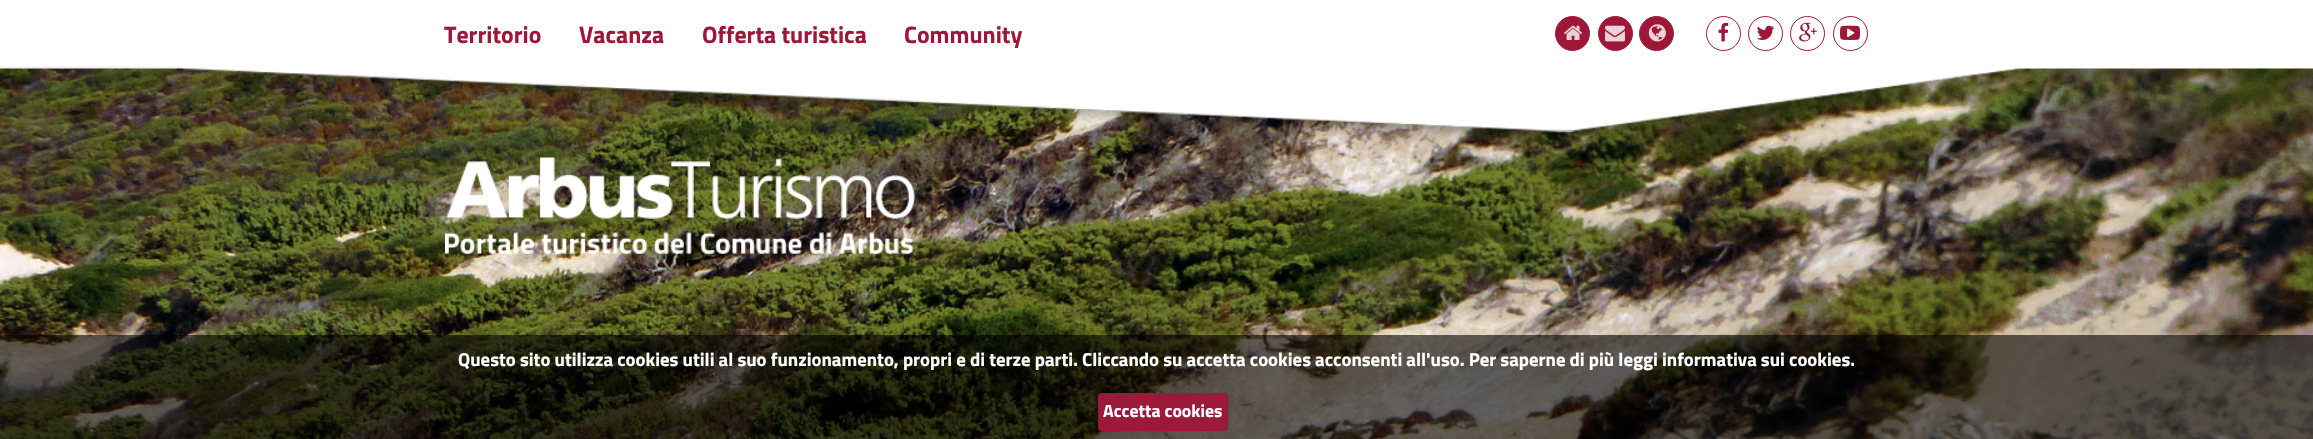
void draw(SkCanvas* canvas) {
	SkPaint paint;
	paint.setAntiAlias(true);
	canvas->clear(0xffffffff);
	SkFont f1(fontMgr->matchFamilyStyle("Titillium Web", SkFontStyle::Bold()), 23.75);
	f1.setSubpixel(true);
	paint.setColor(0xff9d1838);
	canvas->drawString("Territorio", 444, 43, f1, paint);
	canvas->drawString("Vacanza", 579, 43, f1, paint);
	canvas->drawString("Offerta turistica", 702, 43, f1, paint);
	canvas->drawString("Community", 904, 43, f1, paint);
	canvas->drawCircle(1572.5, 33.5, 17, paint);
	paint.setStroke(true);
	paint.setStrokeWidth(1);
	canvas->drawCircle(1572.5, 33.5, 17, paint);
	canvas->drawImageRect(SkImages::DeferredFromEncodedData(SkData::MakeFromFileName("img1.png")), SkRect::MakeXYWH(1564, 25, 18, 15), SkSamplingOptions());
	paint.setStroke(false);
	canvas->drawCircle(1615.5, 33.5, 17, paint);
	paint.setStroke(true);
	canvas->drawCircle(1615.5, 33.5, 17, paint);
	canvas->drawImageRect(SkImages::DeferredFromEncodedData(SkData::MakeFromFileName("img2.png")), SkRect::MakeXYWH(1605, 25, 20, 17), SkSamplingOptions());
	paint.setStroke(false);
	canvas->drawCircle(1656.5, 33.5, 17, paint);
	paint.setStroke(true);
	canvas->drawCircle(1656.5, 33.5, 17, paint);
	canvas->drawImageRect(SkImages::DeferredFromEncodedData(SkData::MakeFromFileName("img3.png")), SkRect::MakeXYWH(1648, 24, 18, 18), SkSamplingOptions());
	canvas->drawCircle(1723.5, 33.5, 17, paint);
	canvas->drawImageRect(SkImages::DeferredFromEncodedData(SkData::MakeFromFileName("img4.png")), SkRect::MakeXYWH(1718, 22, 11, 20), SkSamplingOptions());
	canvas->drawCircle(1765.5, 33.5, 17, paint);
	canvas->drawImageRect(SkImages::DeferredFromEncodedData(SkData::MakeFromFileName("img5.png")), SkRect::MakeXYWH(1757, 25, 18, 15), SkSamplingOptions());
	canvas->drawCircle(1807.5, 33.5, 17, paint);
	canvas->drawImageRect(SkImages::DeferredFromEncodedData(SkData::MakeFromFileName("img6.png")), SkRect::MakeXYWH(1799, 22, 18, 20), SkSamplingOptions());
	canvas->drawCircle(1850.5, 33.5, 17, paint);
	canvas->drawImageRect(SkImages::DeferredFromEncodedData(SkData::MakeFromFileName("img7.png")), SkRect::MakeXYWH(1840, 25, 20, 15), SkSamplingOptions());
	canvas->drawImageRect(SkImages::DeferredFromEncodedData(SkData::MakeFromFileName("img9.png")), SkRect::MakeXYWH(0, 66, 2313, 373), SkSamplingOptions());
	canvas->drawImageRect(SkImages::DeferredFromEncodedData(SkData::MakeFromFileName("img8.png")), SkRect::MakeXYWH(0, 65, 2313, 78), SkSamplingOptions());
	canvas->drawImageRect(SkImages::DeferredFromEncodedData(SkData::MakeFromFileName("img10.png")), SkRect::MakeXYWH(445, 157, 470, 97), SkSamplingOptions());
	paint.setStroke(false);
	paint.setColor(0x99000000);
	canvas->drawRect(SkRect::MakeXYWH(0, 335, 2313, 104), paint);
	SkFont f2(fontMgr->matchFamilyStyle("Titillium Web", SkFontStyle::Bold()), 18.75);
	f2.setSubpixel(true);
	paint.setColor(0xffffffff);
	canvas->drawString("Questo sito utilizza cookies utili al suo funzionamento, propri e di terze parti. Cliccando su accetta cookies acconsenti all'uso. Per saperne di più leggi informativa sui cookies.", 458, 366, f2, paint);
	paint.setColor(0x40000000);
	paint.setMaskFilter(SkMaskFilter::MakeBlur(kNormal_SkBlurStyle, 1));
	canvas->drawRoundRect(SkRect::MakeXYWH(1098, 393, 130, 38), 4, 4, paint);
	paint.setMaskFilter(nullptr);
	paint.setColor(0xff9d1939);
	canvas->drawRoundRect(SkRect::MakeXYWH(1098, 393, 130, 38), 4, 4, paint);
	SkFont f3(fontMgr->matchFamilyStyle("Titillium Web", SkFontStyle::Bold()), 17.75);
	f3.setSubpixel(true);
	paint.setColor(0xffffffff);
	canvas->drawString("Accetta cookies", 1103, 417, f3, paint);
}
